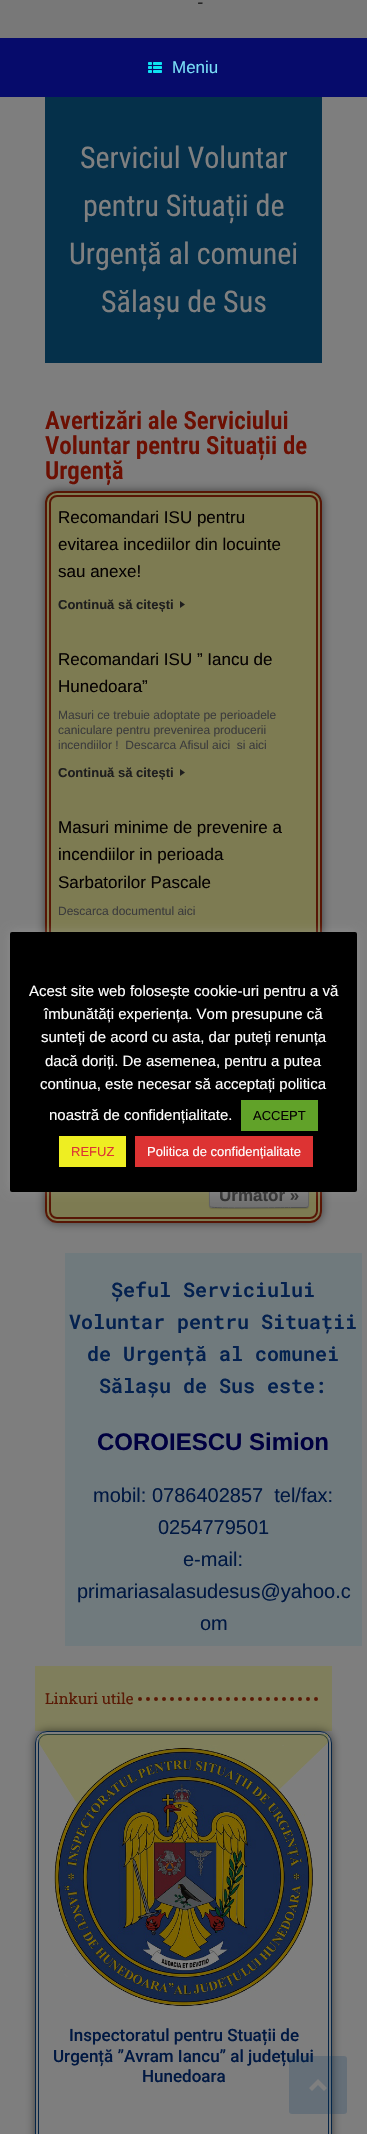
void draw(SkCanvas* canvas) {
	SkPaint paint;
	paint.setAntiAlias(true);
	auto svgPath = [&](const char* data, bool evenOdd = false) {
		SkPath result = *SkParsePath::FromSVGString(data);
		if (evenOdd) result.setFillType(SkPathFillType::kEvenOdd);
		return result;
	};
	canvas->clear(0xff787878);
	SkFont f1(fontMgr->matchFamilyStyle("Liberation Sans", SkFontStyle::Italic()), 18);
	f1.setSubpixel(true);
	paint.setColor(0xff262626);
	canvas->drawString("-", 197, 8, f1, paint);
	paint.setColor(0xff060b6b);
	canvas->drawRect(SkRect::MakeXYWH(0, 38, 367, 59), paint);
	canvas->drawImageRect(SkImages::DeferredFromEncodedData(SkData::MakeFromFileName("img1.png")), SkRect::MakeXYWH(148, 62, 14, 11), SkSamplingOptions());
	SkFont f2(fontMgr->matchFamilyStyle("Liberation Sans", SkFontStyle::Normal()), 17);
	f2.setSubpixel(true);
	paint.setColor(0xff79def7);
	canvas->drawString("Meniu", 172, 73, f2, paint);
	paint.setColor(0xff7e7e7e);
	canvas->drawRect(SkRect::MakeXYWH(0, 97, 367, 2037), paint);
	paint.setColor(0xff05304a);
	canvas->drawRect(SkRect::MakeXYWH(45, 97, 277, 266), paint);
	SkFont f3(fontMgr->matchFamilyStyle("Roboto Condensed", SkFontStyle::Normal()), 30);
	f3.setSubpixel(true);
	paint.setColor(0xff808080);
	canvas->drawString("Serviciul Voluntar", 80, 168, f3, paint);
	canvas->drawString("pentru Situații de", 83, 216, f3, paint);
	canvas->drawString("Urgență al comunei", 69, 264, f3, paint);
	canvas->drawString("Sălașu de Sus", 101, 312, f3, paint);
	SkFont f4(fontMgr->matchFamilyStyle("Roboto Condensed", SkFontStyle(600, SkFontStyle::kNormal_Width, SkFontStyle::kUpright_Slant)), 25);
	f4.setSubpixel(true);
	paint.setColor(0xff6c0f02);
	canvas->drawString("Avertizări ale Serviciului", 45, 429, f4, paint);
	canvas->drawString("Voluntar pentru Situații de", 45, 454, f4, paint);
	canvas->drawString("Urgență", 45, 479, f4, paint);
	canvas->save();
	canvas->clipPath(svgPath("M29 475H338V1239H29ZM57 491H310C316.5 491 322 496.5 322 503V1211C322 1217.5 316.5 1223 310 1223H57C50.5 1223 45 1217.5 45 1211V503C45 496.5 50.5 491 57 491Z", true), true);
	paint.setColor(0x80000000);
	paint.setMaskFilter(SkMaskFilter::MakeBlur(kNormal_SkBlurStyle, 5));
	canvas->drawRoundRect(SkRect::MakeXYWH(45, 491, 277, 732), 12, 12, paint);
	paint.setMaskFilter(nullptr);
	canvas->restore();
	paint.setColor(0x5c797502);
	canvas->drawRoundRect(SkRect::MakeXYWH(46, 492, 275, 730), 11, 11, paint);
	paint.setStroke(true);
	paint.setStrokeWidth(2);
	paint.setColor(0xff571605);
	canvas->drawRoundRect(SkRect::MakeXYWH(46, 492, 275, 730), 11, 11, paint);
	canvas->drawRoundRect(SkRect::MakeXYWH(50, 496, 267, 722), 7, 7, paint);
	paint.setStroke(false);
	paint.setColor(0xff050101);
	canvas->drawString("Recomandari ISU pentru", 58, 523, f2, paint);
	canvas->drawString("evitarea incediilor din locuinte", 58, 550, f2, paint);
	canvas->drawString("sau anexe!", 58, 577, f2, paint);
	SkFont f5(fontMgr->matchFamilyStyle("Liberation Sans", SkFontStyle::Bold()), 13);
	f5.setSubpixel(true);
	paint.setColor(0xff1e1e1e);
	canvas->drawString("Continuă să citești", 58, 609, f5, paint);
	canvas->drawImageRect(SkImages::DeferredFromEncodedData(SkData::MakeFromFileName("img2.png")), SkRect::MakeXYWH(180, 601, 5, 7), SkSamplingOptions());
	paint.setColor(0xff050101);
	canvas->drawString("Recomandari ISU ” Iancu de", 58, 665, f2, paint);
	canvas->drawString("Hunedoara”", 58, 692, f2, paint);
	SkFont f6(fontMgr->matchFamilyStyle("Liberation Sans", SkFontStyle::Normal()), 12);
	f6.setSubpixel(true);
	paint.setColor(0xff3c3c3c);
	canvas->drawString("Masuri ce trebuie adoptate pe perioadele", 58, 719, f6, paint);
	canvas->drawString("caniculare pentru prevenirea producerii", 58, 734, f6, paint);
	canvas->drawString("incendiilor !  Descarca Afisul aici  si aici", 58, 749, f6, paint);
	paint.setColor(0xff1e1e1e);
	canvas->drawString("Continuă să citești", 58, 777, f5, paint);
	canvas->drawImageRect(SkImages::DeferredFromEncodedData(SkData::MakeFromFileName("img2.png")), SkRect::MakeXYWH(180, 769, 5, 7), SkSamplingOptions());
	paint.setColor(0xff050101);
	canvas->drawString("Masuri minime de prevenire a", 58, 833, f2, paint);
	canvas->drawString("incendiilor in perioada", 58, 860, f2, paint);
	canvas->drawString("Sarbatorilor Pascale", 58, 888, f2, paint);
	paint.setColor(0xff3c3c3c);
	canvas->drawString("Descarca documentul aici", 58, 915, f6, paint);
	paint.setColor(0x1f000000);
	paint.setMaskFilter(SkMaskFilter::MakeBlur(kNormal_SkBlurStyle, 0.5));
	canvas->drawRoundRect(SkRect::MakeXYWH(209, 1183, 100, 26), 3, 3, paint);
	paint.setMaskFilter(nullptr);
	canvas->save();
	canvas->clipPath(svgPath("M212 1182H306C307.5 1182 309 1183.5 309 1185V1205C309 1206.5 307.5 1208 306 1208H212C210.5 1208 209 1206.5 209 1205V1185C209 1183.5 210.5 1182 212 1182Z"), true);
	{
		const SkColor colors[] = {0xff707070, 0xff808080};
		const float stops[] = {0, 1};
		const SkPoint ends[] = {{210, 1207}, {210, 1183}};
		paint.setShader(SkGradientShader::MakeLinear(ends, colors, stops, 2, SkTileMode::kClamp));
		paint.setAlpha(255);
	}
	canvas->drawRect(SkRect::MakeXYWH(209, 1192, 100, 15), paint);
	{
		const SkColor colors[] = {0xff707070, 0xff808080};
		const float stops[] = {0, 1};
		const SkPoint ends[] = {{210, 1231}, {210, 1207}};
		paint.setShader(SkGradientShader::MakeLinear(ends, colors, stops, 2, SkTileMode::kClamp));
		paint.setAlpha(255);
	}
	canvas->drawRect(SkRect::MakeXYWH(209, 1207, 100, 1), paint);
	canvas->restore();
	paint.setStroke(true);
	paint.setStrokeWidth(1);
	paint.setShader(nullptr);
	paint.setColor(0xff626262);
	canvas->drawPath(svgPath("M308 1183C308 1183.5 308.5 1184.5 308.5 1185V1205C308.5 1205.5 308 1206.5 308 1207"), paint);
	paint.setColor(0xff505050);
	canvas->drawPath(svgPath("M308 1207L306 1207.5H290.5C282 1207.5 212.5 1208.5 210.5 1207H210"), paint);
	paint.setColor(0xff626262);
	canvas->drawPath(svgPath("M210 1207C210 1206.5 209.5 1205.5 209.5 1205V1185C209.5 1184.5 210 1183.5 210 1183"), paint);
	SkFont f7(fontMgr->matchFamilyStyle("Liberation Sans", SkFontStyle::Bold()), 17);
	f7.setSubpixel(true);
	paint.setStroke(false);
	paint.setColor(0xff323232);
	canvas->drawString("Următor »", 219, 1201, f7, paint);
	paint.setColor(0xff707a7d);
	canvas->drawRect(SkRect::MakeXYWH(65, 1253, 297, 393), paint);
	SkFont f8(fontMgr->matchFamilyStyle("Roboto Mono", SkFontStyle(600, SkFontStyle::kNormal_Width, SkFontStyle::kUpright_Slant)), 20);
	f8.setSubpixel(true);
	paint.setColor(0xff04214f);
	canvas->drawString("Șeful Serviciului", 111, 1297, f8, paint);
	canvas->drawString("Voluntar pentru Situații", 69, 1329, f8, paint);
	canvas->drawString("de Urgență al comunei", 87, 1361, f8, paint);
	canvas->drawString("Sălașu de Sus este:", 99, 1393, f8, paint);
	SkFont f9(fontMgr->matchFamilyStyle("Liberation Sans", SkFontStyle::Bold()), 24);
	f9.setSubpixel(true);
	paint.setColor(0xff000040);
	canvas->drawString("COROIESCU Simion", 97, 1450, f9, paint);
	SkFont f10(fontMgr->matchFamilyStyle("Liberation Sans", SkFontStyle::Normal()), 20);
	f10.setSubpixel(true);
	paint.setColor(0xff001842);
	canvas->drawString("mobil: 0786402857  tel/fax:", 93, 1502, f10, paint);
	canvas->drawString("0254779501", 158, 1534, f10, paint);
	canvas->drawString("e-mail:", 183, 1566, f10, paint);
	canvas->drawString("primariasalasudesus@yahoo.c", 77, 1598, f10, paint);
	canvas->drawString("om", 200, 1630, f10, paint);
	paint.setColor(0xff7f7e5c);
	canvas->drawRect(SkRect::MakeXYWH(35, 1666, 297, 65), paint);
	SkFont f11(fontMgr->matchFamilyStyle("Roboto Slab", SkFontStyle::Normal()), 15);
	f11.setSubpixel(true);
	paint.setColor(0xff5a1a05);
	canvas->drawString("Linkuri utile", 45, 1704, f11, paint);
	paint.setStroke(true);
	paint.setStrokeWidth(4);
	paint.setStrokeCap(SkPaint::kRound_Cap);
	paint.setPathEffect(SkDashPathEffect::Make({{0, 8}}, 0));
	canvas->drawPath(svgPath("M140 1699H322"), paint);
	paint.setPathEffect(nullptr);
	canvas->save();
	canvas->clipPath(svgPath("M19 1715H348V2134H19ZM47 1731H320C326.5 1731 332 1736.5 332 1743V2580C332 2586.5 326.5 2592 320 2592H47C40.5 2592 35 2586.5 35 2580V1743C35 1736.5 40.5 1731 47 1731Z", true), true);
	paint.setStroke(false);
	paint.setColor(0x80000000);
	paint.setMaskFilter(SkMaskFilter::MakeBlur(kNormal_SkBlurStyle, 5));
	canvas->drawRoundRect(SkRect::MakeXYWH(35, 1731, 297, 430), 12, 12, paint);
	paint.setMaskFilter(nullptr);
	canvas->restore();
	paint.setStroke(true);
	paint.setStrokeWidth(1);
	paint.setStrokeCap(SkPaint::kButt_Cap);
	paint.setColor(0xff052446);
	canvas->drawRoundRect(SkRect::MakeXYWH(35.5, 1731.5, 296, 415), 11.5, 11.5, paint);
	canvas->drawRoundRect(SkRect::MakeXYWH(38.5, 1734.5, 290, 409), 8.5, 8.5, paint);
	canvas->save();
	canvas->clipRect(SkRect::MakeXYWH(39, 1734, 289, 165));
	paint.setStroke(false);
	paint.setColor(0x4a807c07);
	canvas->drawPath(svgPath("M261 1807L226 1779L135 1896L37 1740V1734H331V1740"), paint);
	canvas->restore();
	canvas->drawImageRect(SkImages::DeferredFromEncodedData(SkData::MakeFromFileName("img3.png")), SkRect::MakeXYWH(49, 1745, 265, 262), SkSamplingOptions());
	SkFont f12(fontMgr->matchFamilyStyle("Roboto", SkFontStyle(500, SkFontStyle::kNormal_Width, SkFontStyle::kUpright_Slant)), 17);
	f12.setSubpixel(true);
	paint.setColor(0xff001842);
	canvas->drawString("Inspectoratul pentru Stuații de", 69, 2041, f12, paint);
	canvas->drawString("Urgență ”Avram Iancu” al județului", 53, 2062, f12, paint);
	canvas->drawString("Hunedoara", 142, 2082, f12, paint);
	paint.setColor(0x4dacabab);
	paint.setMaskFilter(SkMaskFilter::MakeBlur(kNormal_SkBlurStyle, 5));
	canvas->drawRoundRect(SkRect::MakeXYWH(10, 931, 347, 260), 2, 2, paint);
	paint.setMaskFilter(nullptr);
	paint.setColor(0xff000000);
	canvas->drawRoundRect(SkRect::MakeXYWH(10, 932, 347, 260), 2, 2, paint);
	SkFont f13(fontMgr->matchFamilyStyle("Liberation Sans", SkFontStyle::Normal()), 15);
	f13.setSubpixel(true);
	paint.setColor(0xffffffff);
	canvas->drawString("Acest site web folosește cookie-uri pentru a vă", 29, 996, f13, paint);
	canvas->drawString("îmbunătăți experiența. Vom presupune că", 44, 1019, f13, paint);
	canvas->drawString("sunteți de acord cu asta, dar puteți renunța", 41, 1042, f13, paint);
	canvas->drawString("dacă doriți. De asemenea, pentru a putea", 45, 1066, f13, paint);
	canvas->drawString("continua, este necesar să acceptați politica", 40, 1089, f13, paint);
	canvas->drawString("noastră de confidențialitate.", 49, 1120, f13, paint);
	paint.setColor(0xff61a229);
	canvas->drawRect(SkRect::MakeXYWH(241, 1100, 77, 31), paint);
	SkFont f14(fontMgr->matchFamilyStyle("Liberation Sans", SkFontStyle::Normal()), 13);
	f14.setSubpixel(true);
	paint.setColor(0xff050101);
	canvas->drawString("ACCEPT", 253, 1120, f14, paint);
	paint.setColor(0xffeeee22);
	canvas->drawRect(SkRect::MakeXYWH(59, 1136, 67, 31), paint);
	paint.setColor(0xffdd3333);
	canvas->drawString("REFUZ", 71, 1156, f14, paint);
	canvas->drawRect(SkRect::MakeXYWH(135, 1136, 178, 31), paint);
	paint.setColor(0xffffffff);
	canvas->drawString("Politica de confidențialitate", 147, 1156, f14, paint);
	paint.setColor(0x33003360);
	canvas->drawRoundRect(SkRect::MakeXYWH(289, 2056, 58, 58), 3, 3, paint);
	paint.setColor(0xff7f7f7f);
	canvas->drawPath(svgPath("M327 2088L318 2079L309 2088L312 2091L318 2085L324 2091Z"), paint);
}
